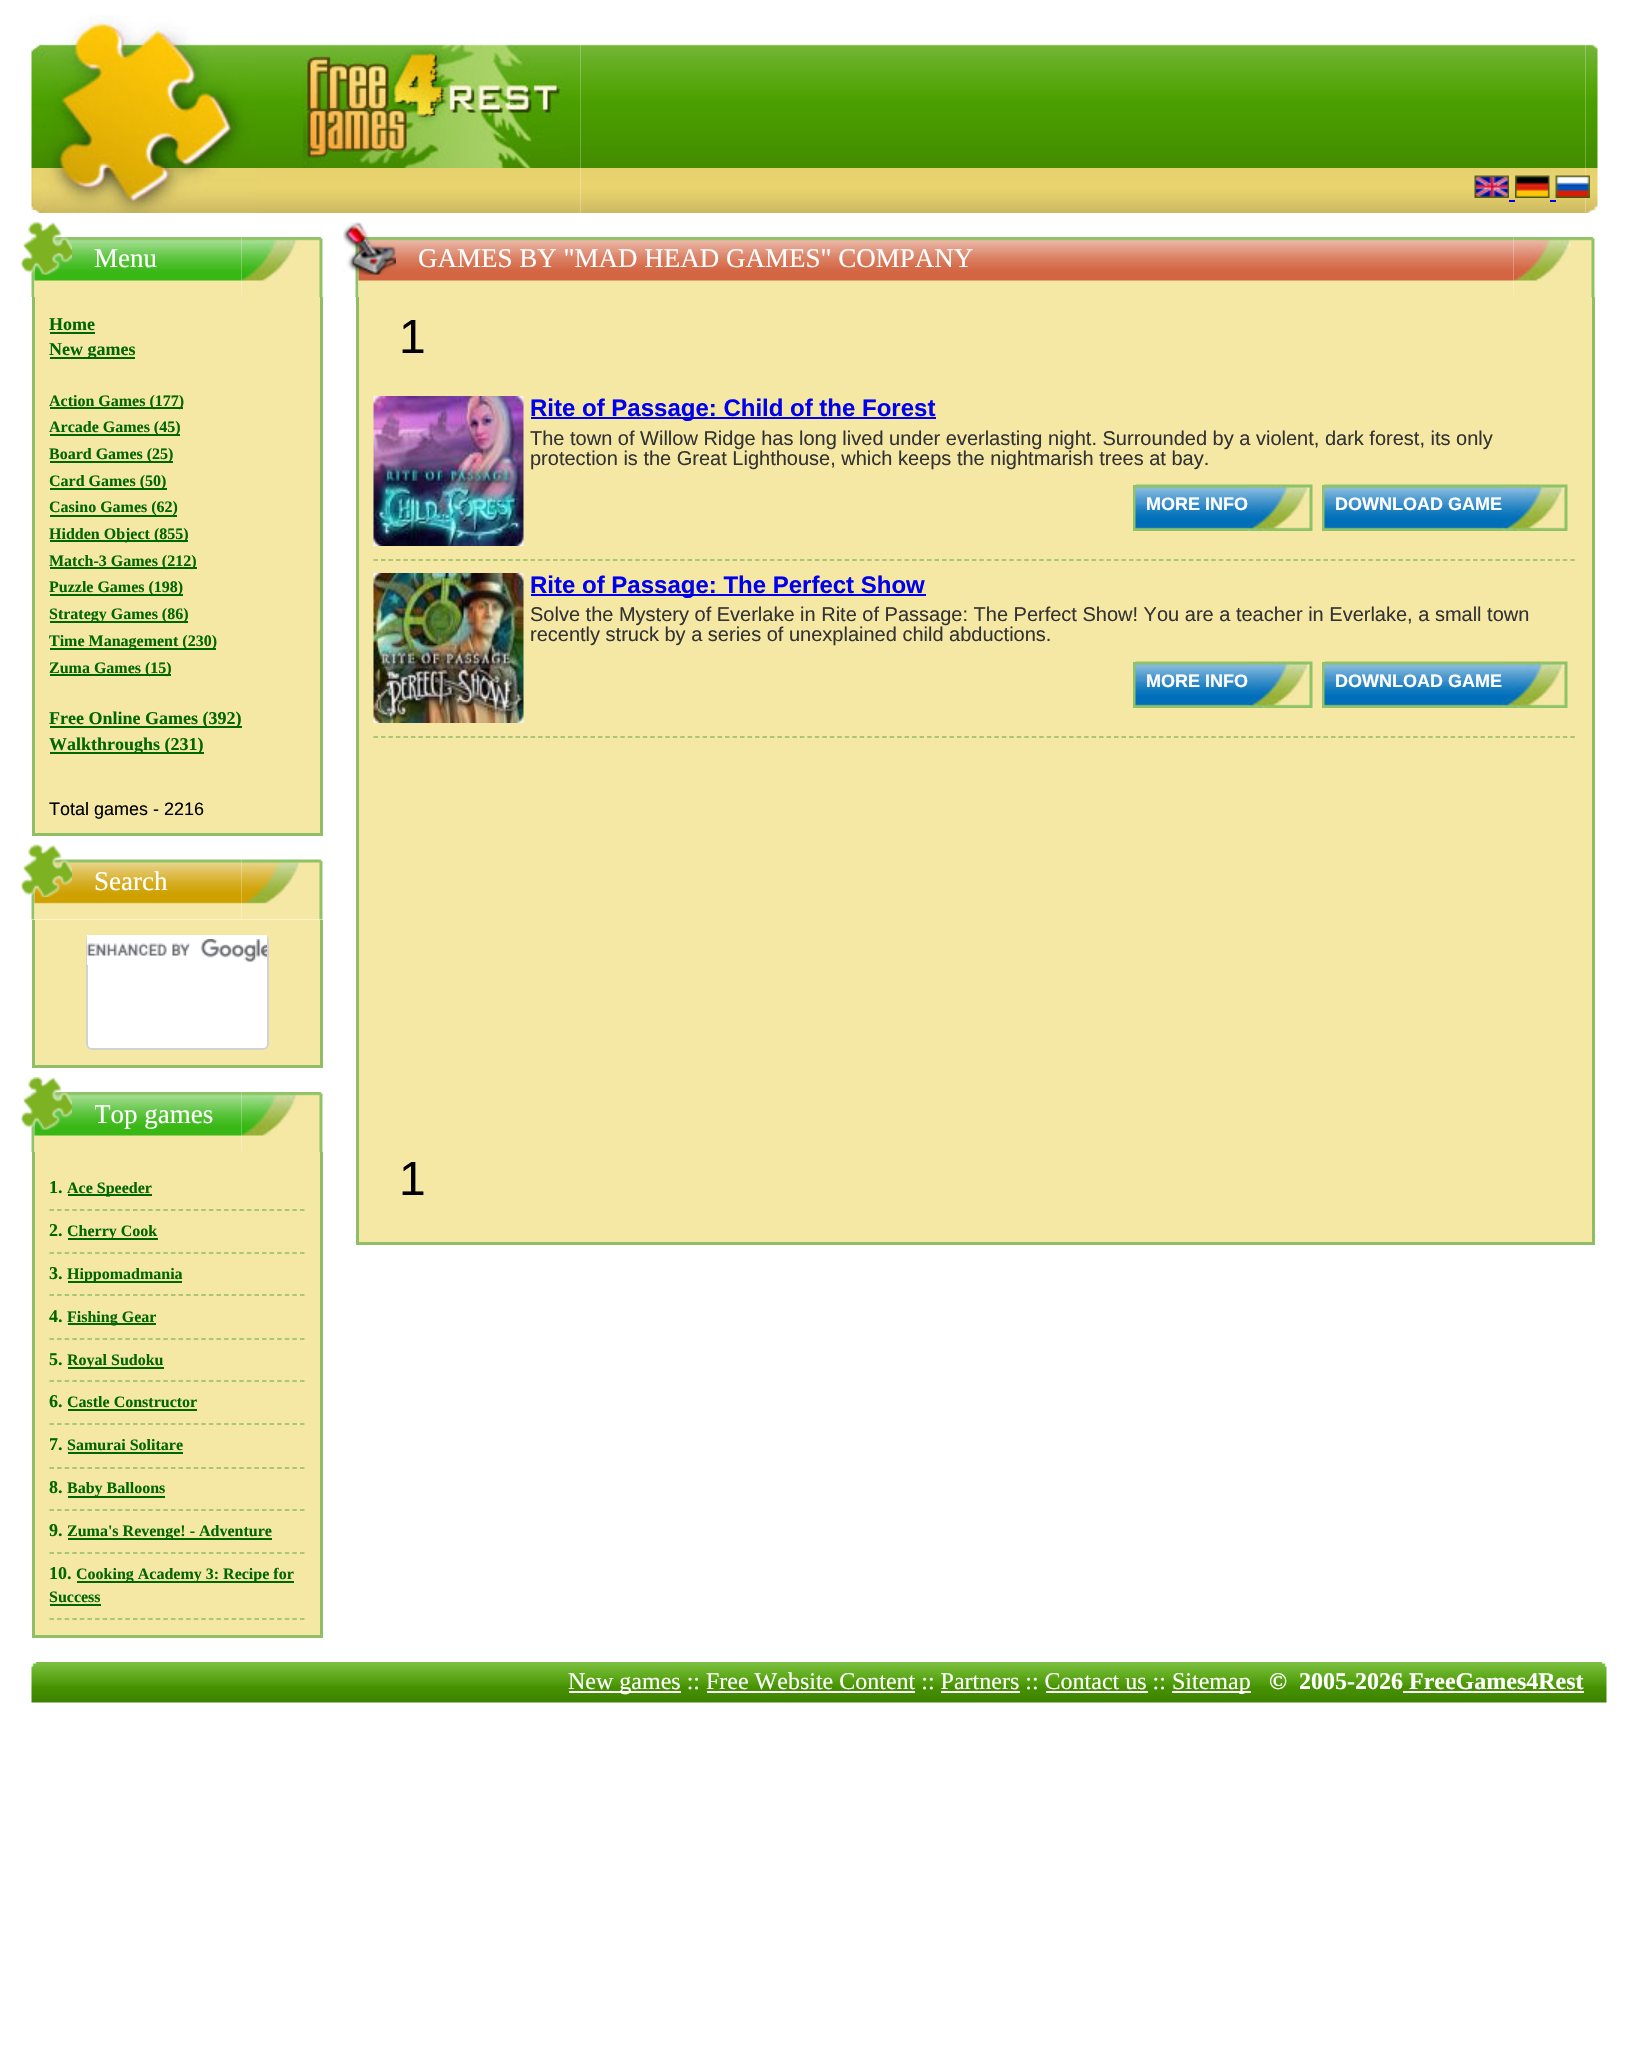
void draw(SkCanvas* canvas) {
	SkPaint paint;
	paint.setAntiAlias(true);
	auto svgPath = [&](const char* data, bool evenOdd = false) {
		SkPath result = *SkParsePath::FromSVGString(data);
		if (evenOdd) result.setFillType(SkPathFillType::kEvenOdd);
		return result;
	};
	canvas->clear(0xffffffff);
	canvas->drawImageRect(SkImages::DeferredFromEncodedData(SkData::MakeFromFileName("img1.png")), SkRect::MakeXYWH(31, 15, 550, 153), SkSamplingOptions());
	canvas->drawImageRect(SkImages::DeferredFromEncodedData(SkData::MakeFromFileName("img3.png")), SkRect::MakeXYWH(1585, 38, 13, 130), SkSamplingOptions());
	canvas->drawImageRect(SkImages::DeferredFromEncodedData(SkData::MakeFromFileName("img2.png")), SkRect::MakeXYWH(580, 44, 1006, 124), SkSamplingOptions());
	canvas->drawImageRect(SkImages::DeferredFromEncodedData(SkData::MakeFromFileName("img4.png")), SkRect::MakeXYWH(31, 168, 550, 45), SkSamplingOptions());
	canvas->drawImageRect(SkImages::DeferredFromEncodedData(SkData::MakeFromFileName("img5.png")), SkRect::MakeXYWH(580, 168, 1006, 45), SkSamplingOptions());
	canvas->drawImageRect(SkImages::DeferredFromEncodedData(SkData::MakeFromFileName("img6.png")), SkRect::MakeXYWH(1585, 168, 13, 45), SkSamplingOptions());
	canvas->drawImageRect(SkImages::DeferredFromEncodedData(SkData::MakeFromFileName("img7.png")), SkRect::MakeXYWH(1474, 175, 35, 23), SkSamplingOptions());
	canvas->drawImageRect(SkImages::DeferredFromEncodedData(SkData::MakeFromFileName("img8.png")), SkRect::MakeXYWH(1515, 175, 35, 23), SkSamplingOptions());
	canvas->drawImageRect(SkImages::DeferredFromEncodedData(SkData::MakeFromFileName("img9.png")), SkRect::MakeXYWH(1555, 175, 35, 23), SkSamplingOptions());
	paint.setColor(0xff0000ee);
	canvas->drawRect(SkRect::MakeXYWH(1509, 200, 6, 2), paint);
	canvas->drawRect(SkRect::MakeXYWH(1550, 200, 6, 2), paint);
	canvas->drawImageRect(SkImages::DeferredFromEncodedData(SkData::MakeFromFileName("img10.png")), SkRect::MakeXYWH(31, 237, 4, 60), SkSamplingOptions());
	canvas->drawImageRect(SkImages::DeferredFromEncodedData(SkData::MakeFromFileName("img13.png")), SkRect::MakeXYWH(241, 237, 82, 60), SkSamplingOptions());
	canvas->drawImageRect(SkImages::DeferredFromEncodedData(SkData::MakeFromFileName("img11.png")), SkRect::MakeXYWH(34, 237, 208, 60), SkSamplingOptions());
	canvas->drawImageRect(SkImages::DeferredFromEncodedData(SkData::MakeFromFileName("img12.png")), SkRect::MakeXYWH(20, 222, 52, 53), SkSamplingOptions());
	SkFont f1(fontMgr->matchFamilyStyle("Liberation Serif", SkFontStyle::Normal()), 27);
	f1.setSubpixel(true);
	paint.setColor(0xffffffff);
	canvas->drawString("Menu", 94, 267, f1, paint);
	paint.setColor(0xfff5e8a5);
	canvas->drawRect(SkRect::MakeXYWH(35, 297, 285, 536), paint);
	paint.setColor(0xff8fbe66);
	canvas->drawRect(SkRect::MakeXYWH(320, 297, 3, 539), paint);
	canvas->drawRect(SkRect::MakeXYWH(32, 833, 291, 3), paint);
	canvas->drawRect(SkRect::MakeXYWH(32, 297, 3, 539), paint);
	SkFont f2(fontMgr->matchFamilyStyle("Liberation Serif", SkFontStyle::Bold()), 18);
	f2.setSubpixel(true);
	paint.setColor(0xff006600);
	canvas->drawString("Home", 49, 330, f2, paint);
	canvas->drawRect(SkRect::MakeXYWH(50, 332, 45, 2), paint);
	canvas->drawRect(SkRect::MakeXYWH(50, 357, 85, 2), paint);
	canvas->drawString("New games", 49, 355, f2, paint);
	canvas->drawRect(SkRect::MakeXYWH(50, 407, 133, 2), paint);
	SkFont f3(fontMgr->matchFamilyStyle("Liberation Serif", SkFontStyle::Bold()), 16);
	f3.setSubpixel(true);
	canvas->drawString("Action Games (177)", 49, 406, f3, paint);
	canvas->drawRect(SkRect::MakeXYWH(50, 434, 130, 2), paint);
	canvas->drawString("Arcade Games (45)", 49, 432, f3, paint);
	canvas->drawRect(SkRect::MakeXYWH(50, 461, 123, 2), paint);
	canvas->drawString("Board Games (25)", 49, 459, f3, paint);
	canvas->drawRect(SkRect::MakeXYWH(50, 488, 117, 2), paint);
	canvas->drawString("Card Games (50)", 49, 486, f3, paint);
	canvas->drawRect(SkRect::MakeXYWH(50, 515, 127, 2), paint);
	canvas->drawString("Casino Games (62)", 49, 512, f3, paint);
	canvas->drawRect(SkRect::MakeXYWH(50, 540, 138, 2), paint);
	canvas->drawString("Hidden Object (855)", 49, 539, f3, paint);
	canvas->drawRect(SkRect::MakeXYWH(50, 567, 147, 2), paint);
	canvas->drawString("Match-3 Games (212)", 49, 566, f3, paint);
	canvas->drawRect(SkRect::MakeXYWH(50, 594, 133, 2), paint);
	canvas->drawString("Puzzle Games (198)", 49, 592, f3, paint);
	canvas->drawRect(SkRect::MakeXYWH(50, 621, 138, 2), paint);
	canvas->drawString("Strategy Games (86)", 49, 619, f3, paint);
	canvas->drawRect(SkRect::MakeXYWH(50, 648, 166, 2), paint);
	canvas->drawString("Time Management (230)", 49, 646, f3, paint);
	canvas->drawRect(SkRect::MakeXYWH(50, 674, 121, 2), paint);
	canvas->drawString("Zuma Games (15)", 49, 673, f3, paint);
	canvas->drawRect(SkRect::MakeXYWH(50, 726, 192, 2), paint);
	canvas->drawString("Free Online Games (392)", 49, 724, f2, paint);
	canvas->drawRect(SkRect::MakeXYWH(50, 752, 154, 2), paint);
	canvas->drawString("Walkthroughs (231)", 49, 750, f2, paint);
	SkFont f4(fontMgr->matchFamilyStyle("Liberation Sans", SkFontStyle::Normal()), 18);
	f4.setSubpixel(true);
	paint.setColor(0xff000000);
	canvas->drawString("Total games - 2216", 49, 815, f4, paint);
	canvas->drawImageRect(SkImages::DeferredFromEncodedData(SkData::MakeFromFileName("img14.png")), SkRect::MakeXYWH(31, 859, 4, 61), SkSamplingOptions());
	canvas->drawImageRect(SkImages::DeferredFromEncodedData(SkData::MakeFromFileName("img17.png")), SkRect::MakeXYWH(241, 859, 82, 61), SkSamplingOptions());
	canvas->drawImageRect(SkImages::DeferredFromEncodedData(SkData::MakeFromFileName("img15.png")), SkRect::MakeXYWH(34, 859, 208, 61), SkSamplingOptions());
	canvas->drawImageRect(SkImages::DeferredFromEncodedData(SkData::MakeFromFileName("img16.png")), SkRect::MakeXYWH(20, 844, 52, 53), SkSamplingOptions());
	paint.setColor(0xffffffff);
	canvas->drawString("Search", 94, 890, f1, paint);
	paint.setColor(0xfff5e8a5);
	canvas->drawRect(SkRect::MakeXYWH(35, 920, 285, 145), paint);
	paint.setColor(0xff8fbe66);
	canvas->drawRect(SkRect::MakeXYWH(320, 920, 3, 148), paint);
	canvas->drawRect(SkRect::MakeXYWH(32, 1065, 291, 3), paint);
	canvas->drawRect(SkRect::MakeXYWH(32, 920, 3, 148), paint);
	paint.setColor(0xffffffff);
	canvas->drawRoundRect(SkRect::MakeXYWH(87, 936, 181, 113), 5, 5, paint);
	paint.setStroke(true);
	paint.setStrokeWidth(2);
	paint.setColor(0xffd2d2d2);
	canvas->drawRoundRect(SkRect::MakeXYWH(87, 936, 181, 113), 5, 5, paint);
	paint.setStroke(false);
	paint.setColor(0xffffffff);
	canvas->drawRect(SkRect::MakeXYWH(87, 935, 180, 30), paint);
	canvas->drawImageRect(SkImages::DeferredFromEncodedData(SkData::MakeFromFileName("img18.png")), SkRect::MakeXYWH(87, 939, 180, 23), SkSamplingOptions());
	canvas->drawImageRect(SkImages::DeferredFromEncodedData(SkData::MakeFromFileName("img10.png")), SkRect::MakeXYWH(31, 1092, 4, 60), SkSamplingOptions());
	canvas->drawImageRect(SkImages::DeferredFromEncodedData(SkData::MakeFromFileName("img13.png")), SkRect::MakeXYWH(241, 1092, 82, 60), SkSamplingOptions());
	canvas->drawImageRect(SkImages::DeferredFromEncodedData(SkData::MakeFromFileName("img11.png")), SkRect::MakeXYWH(34, 1092, 208, 60), SkSamplingOptions());
	canvas->drawImageRect(SkImages::DeferredFromEncodedData(SkData::MakeFromFileName("img12.png")), SkRect::MakeXYWH(20, 1077, 52, 53), SkSamplingOptions());
	canvas->save();
	canvas->clipRect(SkRect::MakeXYWH(95, 1100, 118, 30));
	canvas->drawString("Top games", 94, 1123, f1, paint);
	canvas->restore();
	paint.setColor(0xfff5e8a5);
	canvas->drawRect(SkRect::MakeXYWH(35, 1152, 285, 483), paint);
	paint.setColor(0xff8fbe66);
	canvas->drawRect(SkRect::MakeXYWH(320, 1152, 3, 486), paint);
	canvas->drawRect(SkRect::MakeXYWH(32, 1635, 291, 3), paint);
	canvas->drawRect(SkRect::MakeXYWH(32, 1152, 3, 486), paint);
	paint.setStroke(true);
	paint.setStrokeWidth(1.5);
	paint.setPathEffect(SkDashPathEffect::Make({{4.5f, 3.09f}}, 0));
	canvas->drawPath(svgPath("M49.5 1210H304.5"), paint);
	paint.setPathEffect(nullptr);
	paint.setStroke(false);
	paint.setColor(0xff006600);
	canvas->drawString("1.", 49, 1193, f2, paint);
	canvas->drawRect(SkRect::MakeXYWH(68, 1194, 84, 2), paint);
	canvas->drawString("Ace Speeder", 67, 1193, f3, paint);
	paint.setStroke(true);
	paint.setColor(0xff8fbe66);
	paint.setPathEffect(SkDashPathEffect::Make({{4.5f, 3.09f}}, 0));
	canvas->drawPath(svgPath("M49.5 1253H304.5"), paint);
	paint.setPathEffect(nullptr);
	paint.setStroke(false);
	paint.setColor(0xff006600);
	canvas->drawString("2.", 49, 1236, f2, paint);
	canvas->drawRect(SkRect::MakeXYWH(68, 1238, 90, 2), paint);
	canvas->drawString("Cherry Cook", 67, 1236, f3, paint);
	paint.setStroke(true);
	paint.setColor(0xff8fbe66);
	paint.setPathEffect(SkDashPathEffect::Make({{4.5f, 3.09f}}, 0));
	canvas->drawPath(svgPath("M49.5 1295H304.5"), paint);
	paint.setPathEffect(nullptr);
	paint.setStroke(false);
	paint.setColor(0xff006600);
	canvas->drawString("3.", 49, 1279, f2, paint);
	canvas->drawRect(SkRect::MakeXYWH(68, 1281, 114, 2), paint);
	canvas->drawString("Hippomadmania", 67, 1279, f3, paint);
	paint.setStroke(true);
	paint.setColor(0xff8fbe66);
	paint.setPathEffect(SkDashPathEffect::Make({{4.5f, 3.09f}}, 0));
	canvas->drawPath(svgPath("M49.5 1339H304.5"), paint);
	paint.setPathEffect(nullptr);
	paint.setStroke(false);
	paint.setColor(0xff006600);
	canvas->drawString("4.", 49, 1322, f2, paint);
	canvas->drawRect(SkRect::MakeXYWH(68, 1323, 88, 2), paint);
	canvas->drawString("Fishing Gear", 67, 1322, f3, paint);
	paint.setStroke(true);
	paint.setColor(0xff8fbe66);
	paint.setPathEffect(SkDashPathEffect::Make({{4.5f, 3.09f}}, 0));
	canvas->drawPath(svgPath("M49.5 1381H304.5"), paint);
	paint.setPathEffect(nullptr);
	paint.setStroke(false);
	paint.setColor(0xff006600);
	canvas->drawString("5.", 49, 1365, f2, paint);
	canvas->drawRect(SkRect::MakeXYWH(68, 1367, 96, 2), paint);
	canvas->drawString("Royal Sudoku", 67, 1365, f3, paint);
	paint.setStroke(true);
	paint.setColor(0xff8fbe66);
	paint.setPathEffect(SkDashPathEffect::Make({{4.5f, 3.09f}}, 0));
	canvas->drawPath(svgPath("M49.5 1424H304.5"), paint);
	paint.setPathEffect(nullptr);
	paint.setStroke(false);
	paint.setColor(0xff006600);
	canvas->drawString("6.", 49, 1407, f2, paint);
	canvas->drawString("Castle Constructor", 67, 1407, f3, paint);
	canvas->drawRect(SkRect::MakeXYWH(68, 1409, 129, 2), paint);
	paint.setStroke(true);
	paint.setColor(0xff8fbe66);
	paint.setPathEffect(SkDashPathEffect::Make({{4.5f, 3.09f}}, 0));
	canvas->drawPath(svgPath("M49.5 1468H304.5"), paint);
	paint.setPathEffect(nullptr);
	paint.setStroke(false);
	paint.setColor(0xff006600);
	canvas->drawString("7.", 49, 1450, f2, paint);
	canvas->drawString("Samurai Solitare", 67, 1450, f3, paint);
	canvas->drawRect(SkRect::MakeXYWH(68, 1452, 115, 2), paint);
	paint.setStroke(true);
	paint.setColor(0xff8fbe66);
	paint.setPathEffect(SkDashPathEffect::Make({{4.5f, 3.09f}}, 0));
	canvas->drawPath(svgPath("M49.5 1510H304.5"), paint);
	paint.setPathEffect(nullptr);
	paint.setStroke(false);
	paint.setColor(0xff006600);
	canvas->drawString("8.", 49, 1493, f2, paint);
	canvas->drawRect(SkRect::MakeXYWH(68, 1496, 97, 2), paint);
	canvas->drawString("Baby Balloons", 67, 1493, f3, paint);
	paint.setStroke(true);
	paint.setColor(0xff8fbe66);
	paint.setPathEffect(SkDashPathEffect::Make({{4.5f, 3.09f}}, 0));
	canvas->drawPath(svgPath("M49.5 1553H304.5"), paint);
	paint.setPathEffect(nullptr);
	paint.setStroke(false);
	paint.setColor(0xff006600);
	canvas->drawString("9.", 49, 1536, f2, paint);
	canvas->drawRect(SkRect::MakeXYWH(68, 1538, 204, 2), paint);
	canvas->drawString("Zuma's Revenge! - Adventure", 67, 1536, f3, paint);
	paint.setStroke(true);
	paint.setColor(0xff8fbe66);
	paint.setPathEffect(SkDashPathEffect::Make({{4.5f, 3.09f}}, 0));
	canvas->drawPath(svgPath("M49.5 1619H304.5"), paint);
	paint.setPathEffect(nullptr);
	paint.setStroke(false);
	paint.setColor(0xff006600);
	canvas->drawRect(SkRect::MakeXYWH(77, 1581, 217, 2), paint);
	canvas->drawString("Cooking Academy 3: Recipe for", 76, 1579, f3, paint);
	canvas->drawString("Success", 49, 1602, f3, paint);
	canvas->drawRect(SkRect::MakeXYWH(50, 1604, 51, 2), paint);
	canvas->drawString("10.", 49, 1579, f2, paint);
	canvas->drawImageRect(SkImages::DeferredFromEncodedData(SkData::MakeFromFileName("img19.png")), SkRect::MakeXYWH(355, 240, 4, 57), SkSamplingOptions());
	canvas->drawImageRect(SkImages::DeferredFromEncodedData(SkData::MakeFromFileName("img22.png")), SkRect::MakeXYWH(1513, 237, 82, 60), SkSamplingOptions());
	canvas->drawImageRect(SkImages::DeferredFromEncodedData(SkData::MakeFromFileName("img20.png")), SkRect::MakeXYWH(358, 237, 1156, 60), SkSamplingOptions());
	canvas->drawImageRect(SkImages::DeferredFromEncodedData(SkData::MakeFromFileName("img21.png")), SkRect::MakeXYWH(343, 222, 53, 53), SkSamplingOptions());
	paint.setColor(0xffffffff);
	canvas->drawString("GAMES BY \"MAD HEAD GAMES\" COMPANY", 418, 267, f1, paint);
	paint.setColor(0xfff5e8a5);
	canvas->drawRect(SkRect::MakeXYWH(359, 297, 1233, 945), paint);
	paint.setColor(0xff8fbe66);
	canvas->drawRect(SkRect::MakeXYWH(1592, 297, 3, 948), paint);
	canvas->drawRect(SkRect::MakeXYWH(356, 1242, 1239, 3), paint);
	canvas->drawRect(SkRect::MakeXYWH(356, 297, 3, 948), paint);
	SkFont f5(fontMgr->matchFamilyStyle("Liberation Sans", SkFontStyle::Normal()), 48);
	f5.setSubpixel(true);
	paint.setColor(0xff000000);
	canvas->drawString("1", 399, 353, f5, paint);
	paint.setStroke(true);
	paint.setColor(0xff8fbe66);
	paint.setPathEffect(SkDashPathEffect::Make({{4.5f, 2.98f}}, 0));
	canvas->drawPath(svgPath("M373.5 560H1576.5"), paint);
	paint.setPathEffect(nullptr);
	canvas->drawImageRect(SkImages::DeferredFromEncodedData(SkData::MakeFromFileName("img23.png")), SkRect::MakeXYWH(373, 396, 151, 150), SkSamplingOptions());
	paint.setStroke(false);
	paint.setColor(0xff0000ee);
	canvas->drawRect(SkRect::MakeXYWH(531, 417, 405, 2), paint);
	SkFont f6(fontMgr->matchFamilyStyle("Liberation Sans", SkFontStyle::Bold()), 24);
	f6.setSubpixel(true);
	canvas->drawString("Rite of Passage: Child of the Forest", 530, 416, f6, paint);
	SkFont f7(fontMgr->matchFamilyStyle("Liberation Sans", SkFontStyle::Normal()), 20);
	f7.setSubpixel(true);
	paint.setColor(0xff333333);
	canvas->drawString("The town of Willow Ridge has long lived under everlasting night. Surrounded by a violent, dark forest, its only", 530, 445, f7, paint);
	canvas->drawString("protection is the Great Lighthouse, which keeps the nightmarish trees at bay.", 530, 465, f7, paint);
	paint.setColor(0xff90c367);
	canvas->drawRect(SkRect::MakeXYWH(1133, 485, 3, 46), paint);
	canvas->drawImageRect(SkImages::DeferredFromEncodedData(SkData::MakeFromFileName("img24.png")), SkRect::MakeXYWH(1135, 484, 113, 47), SkSamplingOptions());
	SkFont f8(fontMgr->matchFamilyStyle("Liberation Sans", SkFontStyle::Bold()), 18);
	f8.setSubpixel(true);
	paint.setColor(0xffffffff);
	canvas->drawString("MORE INFO", 1146, 510, f8, paint);
	canvas->drawImageRect(SkImages::DeferredFromEncodedData(SkData::MakeFromFileName("img25.png")), SkRect::MakeXYWH(1248, 484, 65, 47), SkSamplingOptions());
	paint.setColor(0xff90c367);
	canvas->drawRect(SkRect::MakeXYWH(1322, 485, 3, 46), paint);
	canvas->drawImageRect(SkImages::DeferredFromEncodedData(SkData::MakeFromFileName("img26.png")), SkRect::MakeXYWH(1324, 484, 179, 47), SkSamplingOptions());
	paint.setColor(0xffffffff);
	canvas->drawString("DOWNLOAD GAME", 1335, 510, f8, paint);
	canvas->drawImageRect(SkImages::DeferredFromEncodedData(SkData::MakeFromFileName("img27.png")), SkRect::MakeXYWH(1503, 484, 65, 47), SkSamplingOptions());
	paint.setStroke(true);
	paint.setColor(0xff8fbe66);
	paint.setPathEffect(SkDashPathEffect::Make({{4.5f, 2.98f}}, 0));
	canvas->drawPath(svgPath("M373.5 737H1576.5"), paint);
	paint.setPathEffect(nullptr);
	canvas->drawImageRect(SkImages::DeferredFromEncodedData(SkData::MakeFromFileName("img28.png")), SkRect::MakeXYWH(373, 573, 151, 150), SkSamplingOptions());
	paint.setStroke(false);
	paint.setColor(0xff0000ee);
	canvas->drawRect(SkRect::MakeXYWH(531, 594, 395, 2), paint);
	canvas->drawString("Rite of Passage: The Perfect Show", 530, 593, f6, paint);
	paint.setColor(0xff333333);
	canvas->drawString("Solve the Mystery of Everlake in Rite of Passage: The Perfect Show! You are a teacher in Everlake, a small town", 530, 621, f7, paint);
	canvas->drawString("recently struck by a series of unexplained child abductions.", 530, 641, f7, paint);
	paint.setColor(0xff90c367);
	canvas->drawRect(SkRect::MakeXYWH(1133, 662, 3, 46), paint);
	canvas->drawImageRect(SkImages::DeferredFromEncodedData(SkData::MakeFromFileName("img24.png")), SkRect::MakeXYWH(1135, 661, 113, 47), SkSamplingOptions());
	paint.setColor(0xffffffff);
	canvas->drawString("MORE INFO", 1146, 687, f8, paint);
	canvas->drawImageRect(SkImages::DeferredFromEncodedData(SkData::MakeFromFileName("img25.png")), SkRect::MakeXYWH(1248, 661, 65, 47), SkSamplingOptions());
	paint.setColor(0xff90c367);
	canvas->drawRect(SkRect::MakeXYWH(1322, 662, 3, 46), paint);
	canvas->drawImageRect(SkImages::DeferredFromEncodedData(SkData::MakeFromFileName("img26.png")), SkRect::MakeXYWH(1324, 661, 179, 47), SkSamplingOptions());
	paint.setColor(0xffffffff);
	canvas->drawString("DOWNLOAD GAME", 1335, 687, f8, paint);
	canvas->drawImageRect(SkImages::DeferredFromEncodedData(SkData::MakeFromFileName("img27.png")), SkRect::MakeXYWH(1503, 661, 65, 47), SkSamplingOptions());
	paint.setColor(0xff000000);
	canvas->drawString("1", 399, 1195, f5, paint);
	canvas->drawImageRect(SkImages::DeferredFromEncodedData(SkData::MakeFromFileName("img29.png")), SkRect::MakeXYWH(31, 1662, 8, 41), SkSamplingOptions());
	canvas->drawImageRect(SkImages::DeferredFromEncodedData(SkData::MakeFromFileName("img30.png")), SkRect::MakeXYWH(39, 1662, 1560, 41), SkSamplingOptions());
	paint.setColor(0xffffffff);
	canvas->drawRect(SkRect::MakeXYWH(569, 1691, 112, 2), paint);
	SkFont f9(fontMgr->matchFamilyStyle("Liberation Serif", SkFontStyle::Normal()), 24);
	f9.setSubpixel(true);
	canvas->drawString("New games :: Free Website Content :: Partners :: Contact us ::", 568, 1689, f9, paint);
	canvas->drawRect(SkRect::MakeXYWH(1172, 1691, 79, 2), paint);
	canvas->drawString("Sitemap", 1172, 1689, f9, paint);
	SkFont f10(fontMgr->matchFamilyStyle("Liberation Serif", SkFontStyle::Bold()), 24);
	f10.setSubpixel(true);
	canvas->drawString("©", 1269, 1689, f10, paint);
	canvas->drawString("2005-2026 FreeGames4Rest", 1299, 1689, f10, paint);
	canvas->drawRect(SkRect::MakeXYWH(707, 1691, 208, 2), paint);
	canvas->drawRect(SkRect::MakeXYWH(941, 1691, 79, 2), paint);
	canvas->drawRect(SkRect::MakeXYWH(1046, 1691, 102, 2), paint);
	canvas->drawRect(SkRect::MakeXYWH(1403, 1691, 181, 2), paint);
	canvas->drawImageRect(SkImages::DeferredFromEncodedData(SkData::MakeFromFileName("img31.png")), SkRect::MakeXYWH(1599, 1662, 8, 41), SkSamplingOptions());
}
